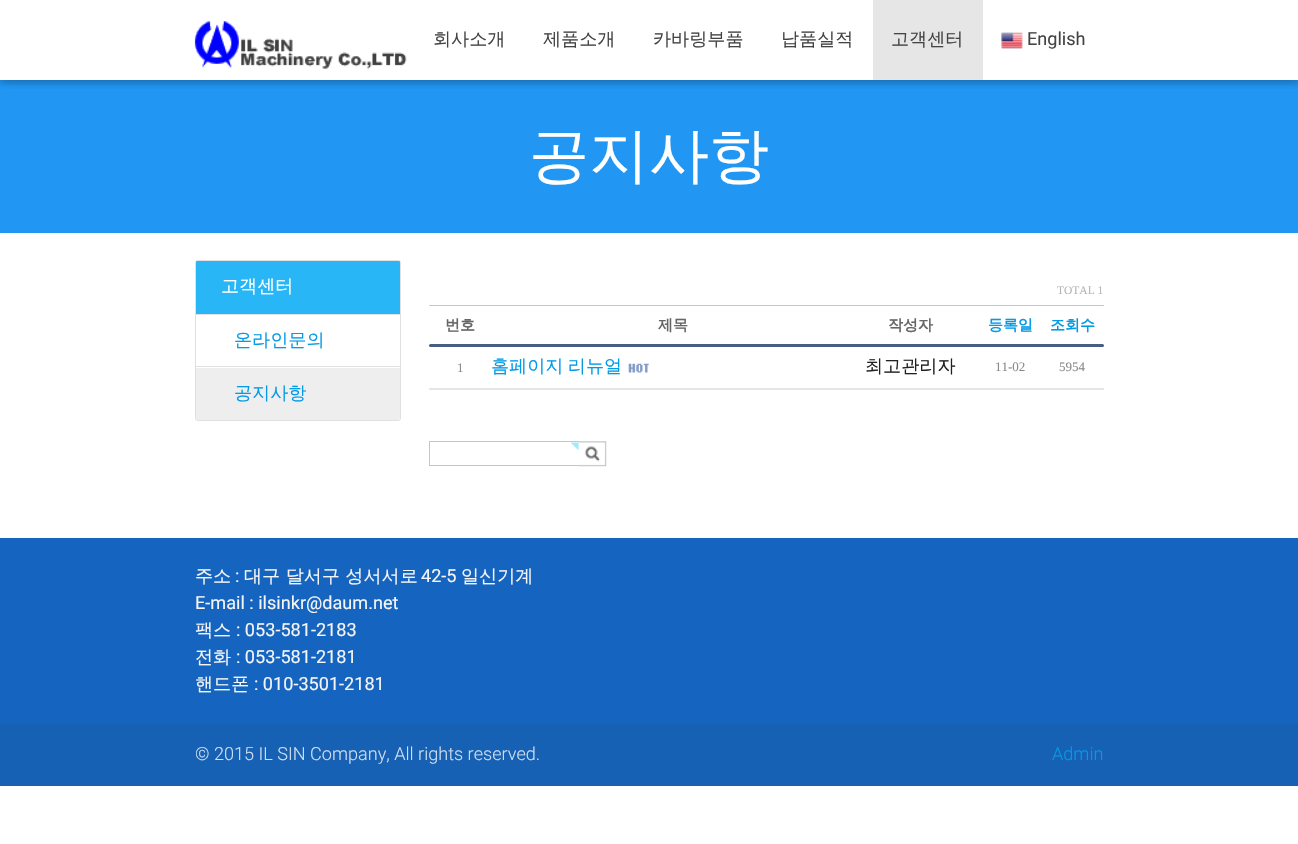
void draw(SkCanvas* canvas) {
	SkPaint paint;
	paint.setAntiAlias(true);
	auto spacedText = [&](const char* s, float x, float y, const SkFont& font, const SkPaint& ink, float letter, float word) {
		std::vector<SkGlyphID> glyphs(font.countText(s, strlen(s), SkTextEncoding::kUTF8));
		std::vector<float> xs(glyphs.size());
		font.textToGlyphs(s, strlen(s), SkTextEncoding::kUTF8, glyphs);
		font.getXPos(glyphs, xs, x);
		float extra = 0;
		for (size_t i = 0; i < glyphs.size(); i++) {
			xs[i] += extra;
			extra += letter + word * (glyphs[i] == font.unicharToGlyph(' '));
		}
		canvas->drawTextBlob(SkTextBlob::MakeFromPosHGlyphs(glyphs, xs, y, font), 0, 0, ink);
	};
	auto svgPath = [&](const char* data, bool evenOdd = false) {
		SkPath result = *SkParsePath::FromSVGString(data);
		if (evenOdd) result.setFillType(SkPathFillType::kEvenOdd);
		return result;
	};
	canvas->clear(0xffffffff);
	paint.setColor(0xff2196f3);
	canvas->drawRect(SkRect::MakeXYWH(0, 80, 1298, 153), paint);
	canvas->save();
	canvas->clipRect(SkRect::MakeXYWH(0, 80, 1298, 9));
	paint.setColor(0x1f000000);
	paint.setMaskFilter(SkMaskFilter::MakeBlur(kNormal_SkBlurStyle, 6));
	canvas->drawRect(SkRect::MakeXYWH(0, 3, 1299, 80), paint);
	paint.setMaskFilter(nullptr);
	canvas->restore();
	canvas->save();
	canvas->clipRect(SkRect::MakeXYWH(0, 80, 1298, 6));
	paint.setColor(0x29000000);
	paint.setMaskFilter(SkMaskFilter::MakeBlur(kNormal_SkBlurStyle, 3));
	canvas->drawRect(SkRect::MakeXYWH(0, 3, 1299, 80), paint);
	paint.setMaskFilter(nullptr);
	canvas->restore();
	canvas->drawImageRect(SkImages::DeferredFromEncodedData(SkData::MakeFromFileName("img1.png")), SkRect::MakeXYWH(194, 21, 213, 48), SkSamplingOptions());
	SkFont f1(fontMgr->matchFamilyStyle("WenQuanYi Zen Hei", SkFontStyle(500, SkFontStyle::kNormal_Width, SkFontStyle::kUpright_Slant)), 18.1);
	f1.setSubpixel(true);
	paint.setColor(0xff444444);
	canvas->drawString("회사소개", 433, 45, f1, paint);
	canvas->drawString("제품소개", 543, 45, f1, paint);
	canvas->drawString("카바링부품", 653, 45, f1, paint);
	canvas->drawString("납품실적", 781, 45, f1, paint);
	paint.setColor(0xffe6e6e6);
	canvas->drawRect(SkRect::MakeXYWH(873, 0, 110, 80), paint);
	paint.setColor(0xff444444);
	canvas->drawString("고객센터", 891, 45, f1, paint);
	canvas->drawImageRect(SkImages::DeferredFromEncodedData(SkData::MakeFromFileName("img2.png")), SkRect::MakeXYWH(1001, 32, 22, 17), SkSamplingOptions());
	SkFont f2(fontMgr->matchFamilyStyle("Roboto", SkFontStyle::Normal()), 18.1);
	f2.setSubpixel(true);
	canvas->drawString("English", 1027, 45, f2, paint);
	SkFont f3(fontMgr->matchFamilyStyle("WenQuanYi Zen Hei", SkFontStyle(500, SkFontStyle::kNormal_Width, SkFontStyle::kUpright_Slant)), 60);
	f3.setSubpixel(true);
	paint.setColor(0xffffffff);
	canvas->drawString("공지사항", 529, 176, f3, paint);
	paint.setStroke(true);
	paint.setStrokeWidth(1);
	paint.setColor(0xffe0e0e0);
	canvas->drawRoundRect(SkRect::MakeXYWH(195.5, 260.5, 205, 160), 2, 2, paint);
	paint.setStroke(false);
	paint.setColor(0xff29b6f6);
	canvas->drawPath(svgPath("M197 261H399C399.5 261 400 261.5 400 262V315H196V262C196 261.5 196.5 261 197 261Z"), paint);
	paint.setColor(0xffe0e0e0);
	canvas->drawRect(SkRect::MakeXYWH(196, 314, 204, 1), paint);
	paint.setColor(0xffffffff);
	canvas->drawString("고객센터", 221, 292, f1, paint);
	paint.setColor(0xffe0e0e0);
	canvas->drawRect(SkRect::MakeXYWH(196, 366, 204, 1), paint);
	paint.setColor(0xff039be5);
	canvas->drawString("온라인문의", 234, 346, f1, paint);
	paint.setColor(0xffeeeeee);
	canvas->drawPath(svgPath("M196 368H400V419C400 419.5 399.5 420 399 420H197C196.5 420 196 419.5 196 419Z"), paint);
	paint.setColor(0xff039be5);
	canvas->drawString("공지사항", 234, 399, f1, paint);
	SkFont f4(fontMgr->matchFamilyStyle("Liberation Serif", SkFontStyle::Normal()), 11.5);
	f4.setSubpixel(true);
	paint.setColor(0xffb5b5b5);
	canvas->drawString("TOTAL 1", 1057, 294, f4, paint);
	paint.setColor(0xffc7c7c7);
	canvas->drawRoundRect(SkRect::MakeXYWH(429, 305, 675, 1), 0.5, 0.5, paint);
	SkFont f5(fontMgr->matchFamilyStyle("WenQuanYi Zen Hei", SkFontStyle::Bold()), 15);
	f5.setSubpixel(true);
	paint.setColor(0xff666666);
	canvas->drawString("번호", 445, 330, f5, paint);
	canvas->drawString("제목", 658, 330, f5, paint);
	canvas->drawString("작성자", 888, 330, f5, paint);
	paint.setColor(0xff039be5);
	canvas->drawString("등록일", 988, 330, f5, paint);
	canvas->drawString("조회수", 1050, 330, f5, paint);
	paint.setColor(0xff495d84);
	canvas->drawRoundRect(SkRect::MakeXYWH(429, 344, 675, 3), 1.5, 1.5, paint);
	SkFont f6(fontMgr->matchFamilyStyle("Liberation Serif", SkFontStyle::Normal()), 13);
	f6.setSubpixel(true);
	paint.setColor(0xff898989);
	canvas->drawString("1", 457, 372, f6, paint);
	paint.setColor(0xff039be5);
	spacedText("홈페이지 리뉴얼", 491, 372, f1, paint, 0, -1);
	canvas->drawImageRect(SkImages::DeferredFromEncodedData(SkData::MakeFromFileName("img3.png")), SkRect::MakeXYWH(628, 363, 21, 10), SkSamplingOptions());
	paint.setColor(0xff212121);
	canvas->drawString("최고관리자", 865, 372, f1, paint);
	paint.setColor(0xff898989);
	canvas->drawString("11-02", 995, 371, f6, paint);
	canvas->drawString("5954", 1059, 371, f6, paint);
	paint.setColor(0xffe5e5e5);
	canvas->drawRoundRect(SkRect::MakeXYWH(429, 388, 675, 1), 0.5, 0.5, paint);
	canvas->drawRoundRect(SkRect::MakeXYWH(429, 389, 675, 1), 0.5, 0.5, paint);
	canvas->drawImageRect(SkImages::DeferredFromEncodedData(SkData::MakeFromFileName("img4.png")), SkRect::MakeXYWH(571, 442, 8, 8), SkSamplingOptions());
	paint.setColor(0xffc6c6c6);
	canvas->drawRect(SkRect::MakeXYWH(429, 441, 150, 1), paint);
	canvas->drawRect(SkRect::MakeXYWH(429, 465, 150, 1), paint);
	canvas->drawRect(SkRect::MakeXYWH(429, 441, 1, 25), paint);
	canvas->drawImageRect(SkImages::DeferredFromEncodedData(SkData::MakeFromFileName("img5.png")), SkRect::MakeXYWH(578, 441, 29, 26), SkSamplingOptions());
	paint.setColor(0xff1565c0);
	canvas->drawRect(SkRect::MakeXYWH(0, 538, 1298, 186), paint);
	paint.setColor(0xfff5f5f5);
	canvas->drawString("주소", 195, 582, f1, paint);
	canvas->drawString(":", 235, 582, f2, paint);
	canvas->drawString("대구 달서구 성서서로", 244, 582, f1, paint);
	canvas->drawString("42-5", 421, 582, f2, paint);
	canvas->drawString("일신기계", 461, 582, f1, paint);
	canvas->drawString("E-mail : ilsinkr@daum.net", 195, 609, f2, paint);
	canvas->drawString("팩스", 195, 636, f1, paint);
	canvas->drawString(": 053-581-2183", 236, 636, f2, paint);
	canvas->drawString("전화", 195, 663, f1, paint);
	canvas->drawString(": 053-581-2181", 236, 663, f2, paint);
	canvas->drawString("핸드폰", 195, 690, f1, paint);
	canvas->drawString(": 010-3501-2181", 254, 690, f2, paint);
	paint.setColor(0xff1761b5);
	canvas->drawRect(SkRect::MakeXYWH(0, 724, 1298, 62), paint);
	SkFont f7(fontMgr->matchFamilyStyle("Roboto", SkFontStyle(300, SkFontStyle::kNormal_Width, SkFontStyle::kUpright_Slant)), 18.1);
	f7.setSubpixel(true);
	paint.setColor(0xffd1dff0);
	canvas->drawString("© 2015 IL SIN Company, All rights reserved.", 195, 760, f7, paint);
	paint.setColor(0xff039be5);
	canvas->drawString("Admin", 1052, 760, f7, paint);
}
